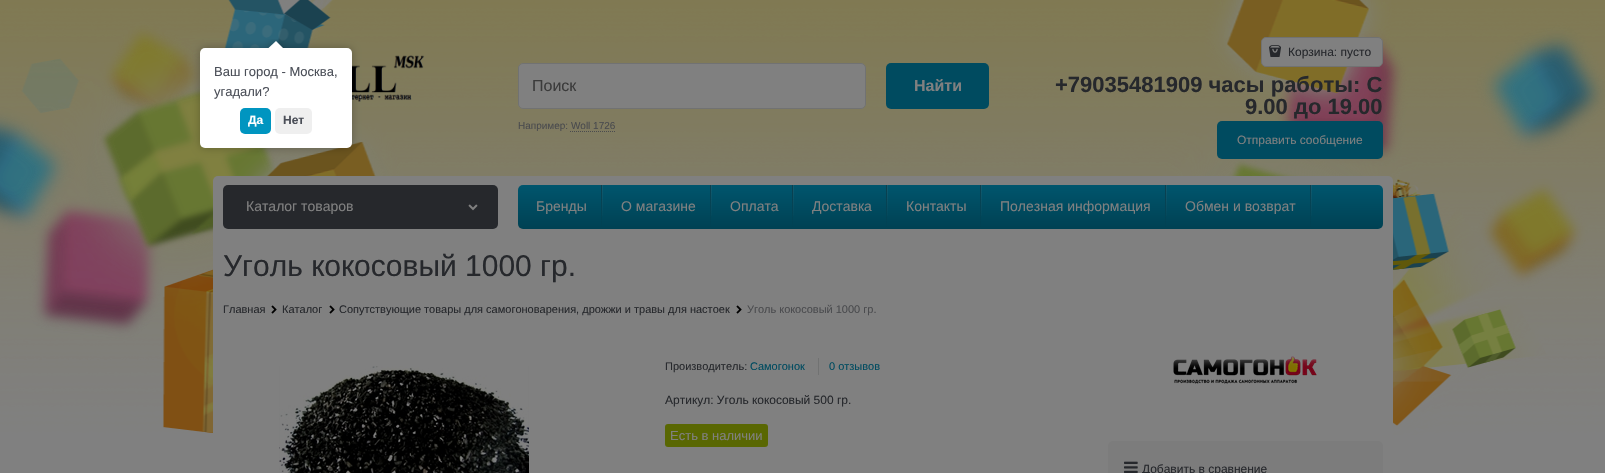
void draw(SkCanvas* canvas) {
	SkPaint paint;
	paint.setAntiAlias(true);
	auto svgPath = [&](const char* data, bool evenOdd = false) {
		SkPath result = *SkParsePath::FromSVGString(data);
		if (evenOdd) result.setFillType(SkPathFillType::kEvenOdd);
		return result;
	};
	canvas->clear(0xff808080);
	canvas->drawImageRect(SkImages::DeferredFromEncodedData(SkData::MakeFromFileName("img1.png")), SkRect::MakeXYWH(0, 0, 1605, 435), SkSamplingOptions());
	canvas->drawImageRect(SkImages::DeferredFromEncodedData(SkData::MakeFromFileName("img2.png")), SkRect::MakeXYWH(352, 55, 73, 47), SkSamplingOptions());
	paint.setColor(0xff808080);
	canvas->drawRoundRect(SkRect::MakeXYWH(518.5, 63.5, 347, 45), 4.5, 4.5, paint);
	paint.setStroke(true);
	paint.setStrokeWidth(1);
	paint.setColor(0xff717272);
	canvas->drawRoundRect(SkRect::MakeXYWH(518.5, 63.5, 347, 45), 4.5, 4.5, paint);
	SkFont f1(fontMgr->matchFamilyStyle("Liberation Sans", SkFontStyle::Normal()), 16);
	f1.setSubpixel(true);
	paint.setStroke(false);
	paint.setColor(0xff3b3b3b);
	canvas->drawString("Поиск", 532, 91, f1, paint);
	SkFont f2(fontMgr->matchFamilyStyle("Liberation Sans", SkFontStyle::Normal()), 10);
	f2.setSubpixel(true);
	paint.setColor(0xff4a4b4e);
	canvas->drawString("Например: Woll 1726", 518, 129, f2, paint);
	paint.setStroke(true);
	paint.setPathEffect(SkDashPathEffect::Make({{1, 1}}, 0));
	canvas->drawPath(svgPath("M570 131.5H615"), paint);
	paint.setPathEffect(nullptr);
	paint.setStroke(false);
	paint.setColor(0xff004b60);
	canvas->drawRoundRect(SkRect::MakeXYWH(886, 63, 103, 46), 5, 5, paint);
	SkFont f3(fontMgr->matchFamilyStyle("Liberation Sans", SkFontStyle::Bold()), 16);
	f3.setSubpixel(true);
	paint.setColor(0xff808080);
	canvas->drawString("Найти", 914, 91, f3, paint);
	canvas->drawRoundRect(SkRect::MakeXYWH(1261.5, 37.5, 121, 29), 4.5, 4.5, paint);
	paint.setStroke(true);
	paint.setColor(0xff717272);
	canvas->drawRoundRect(SkRect::MakeXYWH(1261.5, 37.5, 121, 29), 4.5, 4.5, paint);
	canvas->drawImageRect(SkImages::DeferredFromEncodedData(SkData::MakeFromFileName("img3.png")), SkRect::MakeXYWH(1269, 45, 12, 12), SkSamplingOptions());
	SkFont f4(fontMgr->matchFamilyStyle("Liberation Sans", SkFontStyle::Normal()), 12);
	f4.setSubpixel(true);
	paint.setStroke(false);
	paint.setColor(0xff26282c);
	canvas->drawString("Корзина: пусто", 1288, 56, f4, paint);
	SkFont f5(fontMgr->matchFamilyStyle("Liberation Sans", SkFontStyle::Bold()), 22);
	f5.setSubpixel(true);
	canvas->drawString("+79035481909 часы работы: С", 1055, 92, f5, paint);
	canvas->drawString("9.00 до 19.00", 1245, 114, f5, paint);
	paint.setColor(0xff004b60);
	canvas->drawRoundRect(SkRect::MakeXYWH(1217, 121, 166, 38), 5, 5, paint);
	paint.setColor(0xff808080);
	canvas->drawString("Отправить сообщение", 1237, 144, f4, paint);
	canvas->drawRoundRect(SkRect::MakeXYWH(213, 176, 1180, 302), 5, 5, paint);
	paint.setColor(0xff26282c);
	canvas->drawRoundRect(SkRect::MakeXYWH(223, 185, 275, 44), 5, 5, paint);
	SkFont f6(fontMgr->matchFamilyStyle("Liberation Sans", SkFontStyle::Normal()), 14);
	f6.setSubpixel(true);
	paint.setColor(0xff808080);
	canvas->drawString("Каталог товаров", 246, 211, f6, paint);
	canvas->drawImageRect(SkImages::DeferredFromEncodedData(SkData::MakeFromFileName("img4.png")), SkRect::MakeXYWH(468, 204, 10, 7), SkSamplingOptions());
	{
		const SkColor colors[] = {0xff00556d, 0xff004b60, 0xff004153};
		const float stops[] = {0, 0.5, 1};
		const SkPoint ends[] = {{951, 185}, {951, 229}};
		paint.setShader(SkGradientShader::MakeLinear(ends, colors, stops, 3, SkTileMode::kClamp));
		paint.setAlpha(255);
	}
	canvas->drawRoundRect(SkRect::MakeXYWH(518, 185, 865, 44), 5, 5, paint);
	paint.setShader(nullptr);
	paint.setColor(0xff808080);
	canvas->drawString("Бренды", 536, 211, f6, paint);
	{
		const SkColor colors[] = {0x24808080, 0x05808080, 0x00808080};
		const float stops[] = {0, 0.72, 1};
		const SkPoint ends[] = {{603, 185}, {603, 229}};
		paint.setShader(SkGradientShader::MakeLinear(ends, colors, stops, 3, SkTileMode::kClamp));
		paint.setAlpha(255);
	}
	canvas->drawRect(SkRect::MakeXYWH(602, 185, 1, 31), paint);
	{
		const SkColor colors[] = {0x631d1d1d, 0x541d1d1d, 0x1f1d1d1d, 0x031d1d1d, 0x03808080, 0x00808080};
		const float stops[] = {0, 0.17, 0.61, 0.96, 0.98, 1};
		const SkPoint ends[] = {{602, 185}, {602, 229}};
		paint.setShader(SkGradientShader::MakeLinear(ends, colors, stops, 6, SkTileMode::kClamp));
		paint.setAlpha(255);
	}
	canvas->drawRect(SkRect::MakeXYWH(601, 185, 1, 44), paint);
	paint.setShader(nullptr);
	paint.setColor(0xff808080);
	canvas->drawString("О магазине", 621, 211, f6, paint);
	{
		const SkColor colors[] = {0x24808080, 0x05808080, 0x00808080};
		const float stops[] = {0, 0.72, 1};
		const SkPoint ends[] = {{712, 185}, {712, 229}};
		paint.setShader(SkGradientShader::MakeLinear(ends, colors, stops, 3, SkTileMode::kClamp));
		paint.setAlpha(255);
	}
	canvas->drawRect(SkRect::MakeXYWH(711, 185, 1, 31), paint);
	{
		const SkColor colors[] = {0x631d1d1d, 0x541d1d1d, 0x1f1d1d1d, 0x031d1d1d, 0x03808080, 0x00808080};
		const float stops[] = {0, 0.17, 0.61, 0.96, 0.98, 1};
		const SkPoint ends[] = {{711, 185}, {711, 229}};
		paint.setShader(SkGradientShader::MakeLinear(ends, colors, stops, 6, SkTileMode::kClamp));
		paint.setAlpha(255);
	}
	canvas->drawRect(SkRect::MakeXYWH(710, 185, 1, 44), paint);
	paint.setShader(nullptr);
	paint.setColor(0xff808080);
	canvas->drawString("Оплата", 730, 211, f6, paint);
	{
		const SkColor colors[] = {0x24808080, 0x05808080, 0x00808080};
		const float stops[] = {0, 0.72, 1};
		const SkPoint ends[] = {{794, 185}, {794, 229}};
		paint.setShader(SkGradientShader::MakeLinear(ends, colors, stops, 3, SkTileMode::kClamp));
		paint.setAlpha(255);
	}
	canvas->drawRect(SkRect::MakeXYWH(793, 185, 1, 31), paint);
	{
		const SkColor colors[] = {0x631d1d1d, 0x541d1d1d, 0x1f1d1d1d, 0x031d1d1d, 0x03808080, 0x00808080};
		const float stops[] = {0, 0.17, 0.61, 0.96, 0.98, 1};
		const SkPoint ends[] = {{793, 185}, {793, 229}};
		paint.setShader(SkGradientShader::MakeLinear(ends, colors, stops, 6, SkTileMode::kClamp));
		paint.setAlpha(255);
	}
	canvas->drawRect(SkRect::MakeXYWH(792, 185, 1, 44), paint);
	paint.setShader(nullptr);
	paint.setColor(0xff808080);
	canvas->drawString("Доставка", 812, 211, f6, paint);
	{
		const SkColor colors[] = {0x24808080, 0x05808080, 0x00808080};
		const float stops[] = {0, 0.72, 1};
		const SkPoint ends[] = {{888, 185}, {888, 229}};
		paint.setShader(SkGradientShader::MakeLinear(ends, colors, stops, 3, SkTileMode::kClamp));
		paint.setAlpha(255);
	}
	canvas->drawRect(SkRect::MakeXYWH(887, 185, 1, 31), paint);
	{
		const SkColor colors[] = {0x631d1d1d, 0x541d1d1d, 0x1f1d1d1d, 0x031d1d1d, 0x03808080, 0x00808080};
		const float stops[] = {0, 0.17, 0.61, 0.96, 0.98, 1};
		const SkPoint ends[] = {{887, 185}, {887, 229}};
		paint.setShader(SkGradientShader::MakeLinear(ends, colors, stops, 6, SkTileMode::kClamp));
		paint.setAlpha(255);
	}
	canvas->drawRect(SkRect::MakeXYWH(886, 185, 1, 44), paint);
	paint.setShader(nullptr);
	paint.setColor(0xff808080);
	canvas->drawString("Контакты", 906, 211, f6, paint);
	{
		const SkColor colors[] = {0x24808080, 0x05808080, 0x00808080};
		const float stops[] = {0, 0.72, 1};
		const SkPoint ends[] = {{982, 185}, {982, 229}};
		paint.setShader(SkGradientShader::MakeLinear(ends, colors, stops, 3, SkTileMode::kClamp));
		paint.setAlpha(255);
	}
	canvas->drawRect(SkRect::MakeXYWH(981, 185, 1, 31), paint);
	{
		const SkColor colors[] = {0x631d1d1d, 0x541d1d1d, 0x1f1d1d1d, 0x031d1d1d, 0x03808080, 0x00808080};
		const float stops[] = {0, 0.17, 0.61, 0.96, 0.98, 1};
		const SkPoint ends[] = {{981, 185}, {981, 229}};
		paint.setShader(SkGradientShader::MakeLinear(ends, colors, stops, 6, SkTileMode::kClamp));
		paint.setAlpha(255);
	}
	canvas->drawRect(SkRect::MakeXYWH(980, 185, 1, 44), paint);
	paint.setShader(nullptr);
	paint.setColor(0xff808080);
	canvas->drawString("Полезная информация", 1000, 211, f6, paint);
	{
		const SkColor colors[] = {0x24808080, 0x05808080, 0x00808080};
		const float stops[] = {0, 0.72, 1};
		const SkPoint ends[] = {{1167, 185}, {1167, 229}};
		paint.setShader(SkGradientShader::MakeLinear(ends, colors, stops, 3, SkTileMode::kClamp));
		paint.setAlpha(255);
	}
	canvas->drawRect(SkRect::MakeXYWH(1166, 185, 1, 31), paint);
	{
		const SkColor colors[] = {0x631d1d1d, 0x541d1d1d, 0x1f1d1d1d, 0x031d1d1d, 0x03808080, 0x00808080};
		const float stops[] = {0, 0.17, 0.61, 0.96, 0.98, 1};
		const SkPoint ends[] = {{1166, 185}, {1166, 229}};
		paint.setShader(SkGradientShader::MakeLinear(ends, colors, stops, 6, SkTileMode::kClamp));
		paint.setAlpha(255);
	}
	canvas->drawRect(SkRect::MakeXYWH(1165, 185, 1, 44), paint);
	paint.setShader(nullptr);
	paint.setColor(0xff808080);
	canvas->drawString("Обмен и возврат", 1185, 211, f6, paint);
	{
		const SkColor colors[] = {0x24808080, 0x05808080, 0x00808080};
		const float stops[] = {0, 0.72, 1};
		const SkPoint ends[] = {{1312, 185}, {1312, 229}};
		paint.setShader(SkGradientShader::MakeLinear(ends, colors, stops, 3, SkTileMode::kClamp));
		paint.setAlpha(255);
	}
	canvas->drawRect(SkRect::MakeXYWH(1311, 185, 1, 31), paint);
	{
		const SkColor colors[] = {0x631d1d1d, 0x541d1d1d, 0x1f1d1d1d, 0x031d1d1d, 0x03808080, 0x00808080};
		const float stops[] = {0, 0.17, 0.61, 0.96, 0.98, 1};
		const SkPoint ends[] = {{1311, 185}, {1311, 229}};
		paint.setShader(SkGradientShader::MakeLinear(ends, colors, stops, 6, SkTileMode::kClamp));
		paint.setAlpha(255);
	}
	canvas->drawRect(SkRect::MakeXYWH(1310, 185, 1, 44), paint);
	SkFont f7(fontMgr->matchFamilyStyle("Liberation Sans", SkFontStyle::Normal()), 30);
	f7.setSubpixel(true);
	paint.setShader(nullptr);
	paint.setColor(0xff26282c);
	canvas->drawString("Уголь кокосовый 1000 гр.", 223, 276, f7, paint);
	SkFont f8(fontMgr->matchFamilyStyle("Liberation Sans", SkFontStyle::Normal()), 11);
	f8.setSubpixel(true);
	canvas->drawString("Главная", 223, 313, f8, paint);
	canvas->drawImageRect(SkImages::DeferredFromEncodedData(SkData::MakeFromFileName("img5.png")), SkRect::MakeXYWH(271, 305, 6, 9), SkSamplingOptions());
	canvas->drawString("Каталог", 282, 313, f8, paint);
	canvas->drawImageRect(SkImages::DeferredFromEncodedData(SkData::MakeFromFileName("img5.png")), SkRect::MakeXYWH(329, 305, 6, 9), SkSamplingOptions());
	canvas->drawString("Сопутствующие товары для самогоноварения, дрожжи и травы для настоек", 339, 313, f8, paint);
	canvas->drawImageRect(SkImages::DeferredFromEncodedData(SkData::MakeFromFileName("img5.png")), SkRect::MakeXYWH(736, 305, 6, 9), SkSamplingOptions());
	paint.setColor(0xff4a4b4e);
	canvas->drawString("Уголь кокосовый 1000 гр.", 747, 313, f8, paint);
	canvas->drawImageRect(SkImages::DeferredFromEncodedData(SkData::MakeFromFileName("img6.png")), SkRect::MakeXYWH(279, 366, 250, 107), SkSamplingOptions());
	paint.setColor(0xff26282c);
	canvas->drawString("Производитель:", 665, 370, f8, paint);
	paint.setColor(0xff004b60);
	canvas->drawString("Самогонок", 750, 370, f8, paint);
	paint.setColor(0xff717272);
	canvas->drawRect(SkRect::MakeXYWH(818, 358, 1, 17), paint);
	paint.setColor(0xff004b60);
	canvas->drawString("0 отзывов", 829, 370, f8, paint);
	paint.setColor(0xff26282c);
	canvas->drawString("Артикул: Уголь кокосовый 500 гр.", 665, 404, f4, paint);
	paint.setColor(0xff596702);
	canvas->drawRoundRect(SkRect::MakeXYWH(665, 424, 103, 23), 3, 3, paint);
	SkFont f9(fontMgr->matchFamilyStyle("Liberation Sans", SkFontStyle::Normal()), 13);
	f9.setSubpixel(true);
	paint.setColor(0xff808080);
	canvas->drawString("Есть в наличии", 670, 440, f9, paint);
	canvas->drawImageRect(SkImages::DeferredFromEncodedData(SkData::MakeFromFileName("img7.png")), SkRect::MakeXYWH(1173, 356, 144, 28), SkSamplingOptions());
	paint.setColor(0xff7c7c7c);
	canvas->drawRoundRect(SkRect::MakeXYWH(1108, 441, 275, 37), 5, 5, paint);
	canvas->drawImageRect(SkImages::DeferredFromEncodedData(SkData::MakeFromFileName("img8.png")), SkRect::MakeXYWH(1124, 461, 14, 12), SkSamplingOptions());
	paint.setColor(0xff26282c);
	canvas->drawString("Добавить в сравнение", 1142, 473, f4, paint);
	paint.setColor(0x40000000);
	paint.setMaskFilter(SkMaskFilter::MakeBlur(kNormal_SkBlurStyle, 4.5));
	canvas->drawRoundRect(SkRect::MakeXYWH(200, 48, 152, 100), 5, 5, paint);
	paint.setMaskFilter(nullptr);
	paint.setColor(0xffffffff);
	canvas->drawRoundRect(SkRect::MakeXYWH(200, 48, 152, 100), 5, 5, paint);
	canvas->save();
	canvas->clipRect(SkRect::MakeXYWH(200, 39, 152, 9));
	paint.setColor(0x40000000);
	paint.setMaskFilter(SkMaskFilter::MakeBlur(kNormal_SkBlurStyle, 4.5));
	canvas->drawRect(SkRect::MakeXYWH(271, 43, 10, 10), paint);
	paint.setMaskFilter(nullptr);
	canvas->restore();
	canvas->save();
	canvas->clipRect(SkRect::MakeXYWH(200, 39, 152, 9));
	paint.setColor(0xffffffff);
	canvas->drawPath(svgPath("M276 41L283 48L276 55L268.5 48Z"), paint);
	canvas->restore();
	paint.setColor(0xff4b4f58);
	canvas->drawString("Ваш город - Москва,", 214, 76, f9, paint);
	canvas->drawString("угадали?", 214, 96, f9, paint);
	paint.setColor(0xff0095c0);
	canvas->drawRoundRect(SkRect::MakeXYWH(240, 108, 31, 26), 5, 5, paint);
	SkFont f10(fontMgr->matchFamilyStyle("Liberation Sans", SkFontStyle::Bold()), 12);
	f10.setSubpixel(true);
	paint.setColor(0xffffffff);
	canvas->drawString("Да", 248, 124, f10, paint);
	paint.setColor(0xffefefef);
	canvas->drawRoundRect(SkRect::MakeXYWH(275, 108, 37, 26), 5, 5, paint);
	paint.setColor(0xff4b4f58);
	canvas->drawString("Нет", 283, 124, f10, paint);
}
